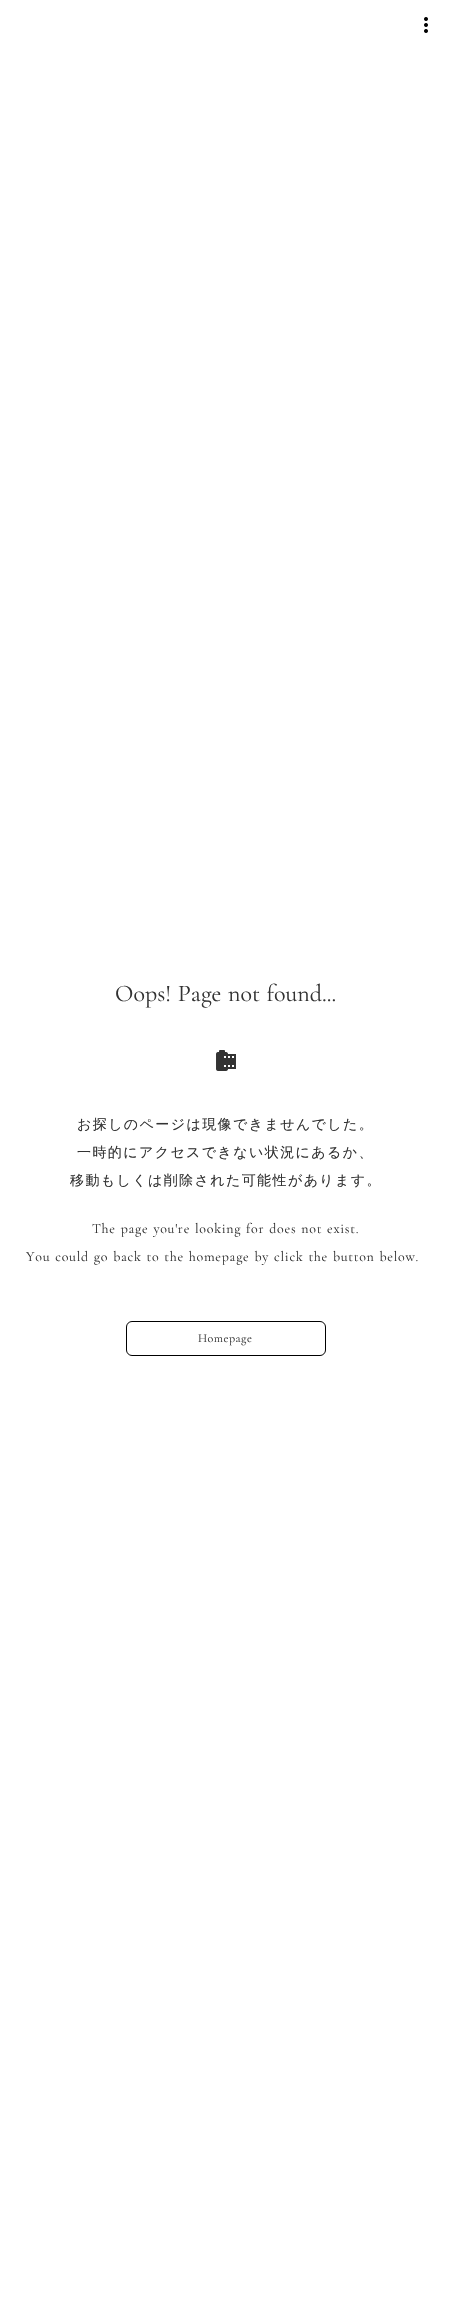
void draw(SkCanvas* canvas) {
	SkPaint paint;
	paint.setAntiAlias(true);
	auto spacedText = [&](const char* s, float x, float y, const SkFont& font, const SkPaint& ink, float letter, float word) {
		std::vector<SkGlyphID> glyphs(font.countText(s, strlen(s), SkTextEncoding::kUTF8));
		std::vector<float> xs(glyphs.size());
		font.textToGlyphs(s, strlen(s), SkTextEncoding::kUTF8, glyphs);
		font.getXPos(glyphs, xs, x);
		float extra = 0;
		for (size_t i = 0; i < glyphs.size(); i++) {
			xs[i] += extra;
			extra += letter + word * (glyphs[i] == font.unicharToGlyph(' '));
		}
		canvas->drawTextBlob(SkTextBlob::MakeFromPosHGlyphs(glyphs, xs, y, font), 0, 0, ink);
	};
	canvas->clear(0xffffffff);
	canvas->drawImageRect(SkImages::DeferredFromEncodedData(SkData::MakeFromFileName("img1.png")), SkRect::MakeXYWH(424, 17, 4, 16), SkSamplingOptions());
	SkFont f1(fontMgr->matchFamilyStyle("Cormorant Garamond", SkFontStyle::Normal()), 24);
	f1.setSubpixel(true);
	paint.setColor(0xff333333);
	spacedText("Oops! Page not found...", 115, 1001, f1, paint, 0, 1);
	canvas->drawImageRect(SkImages::DeferredFromEncodedData(SkData::MakeFromFileName("img2.png")), SkRect::MakeXYWH(216, 1050, 20, 21), SkSamplingOptions());
	SkFont f2(fontMgr->matchFamilyStyle("WenQuanYi Zen Hei", SkFontStyle(500, SkFontStyle::kNormal_Width, SkFontStyle::kUpright_Slant)), 14);
	f2.setSubpixel(true);
	spacedText("お探しのページは現像できませんでした。", 77, 1129, f2, paint, 1.4, 0);
	spacedText("一時的にアクセスできない状況にあるか、", 77, 1157, f2, paint, 1.4, 0);
	spacedText("移動もしくは削除された可能性があります。", 70, 1185, f2, paint, 1.4, 0);
	SkFont f3(fontMgr->matchFamilyStyle("Cormorant Garamond", SkFontStyle::Normal()), 14);
	f3.setSubpixel(true);
	spacedText("The page you're looking for does not exist.", 92, 1233, f3, paint, 0.7, 1);
	spacedText("You could go back to the homepage by click the button below.", 26, 1261, f3, paint, 0.7, 1);
	paint.setStroke(true);
	paint.setStrokeWidth(1);
	paint.setColor(0xff000000);
	canvas->drawRoundRect(SkRect::MakeXYWH(126.5, 1321.5, 199, 34), 5.5, 5.5, paint);
	SkFont f4(fontMgr->matchFamilyStyle("Cormorant Garamond", SkFontStyle::Normal()), 12);
	f4.setSubpixel(true);
	paint.setStroke(false);
	paint.setColor(0xff333333);
	spacedText("Homepage", 198, 1342, f4, paint, 0.5, 0);
}
